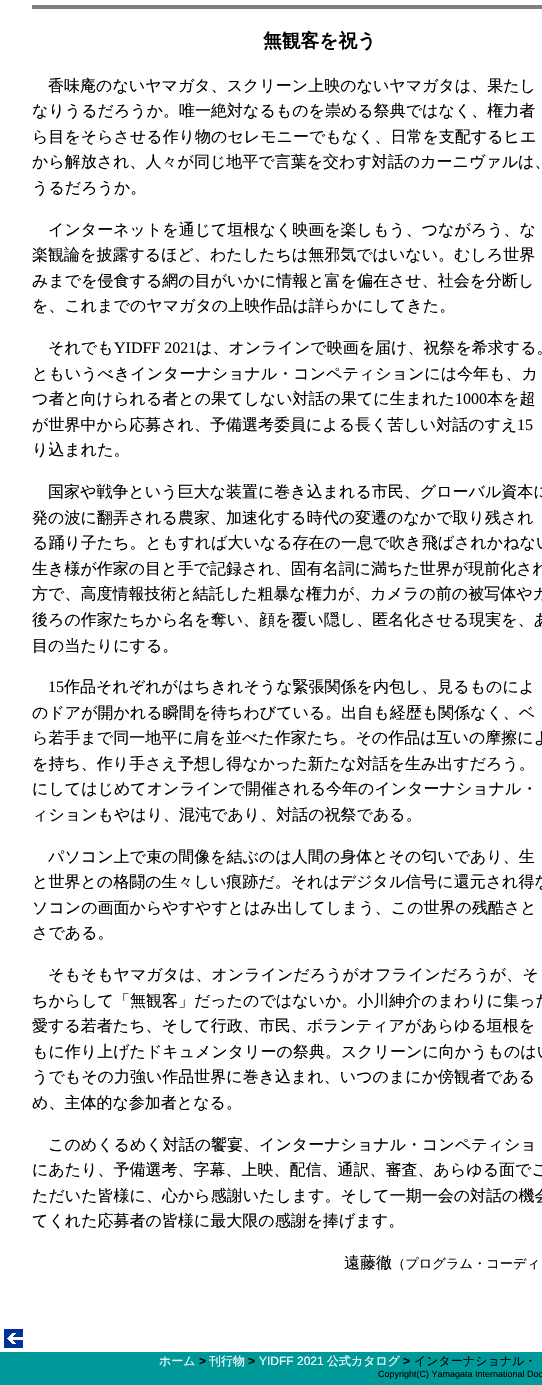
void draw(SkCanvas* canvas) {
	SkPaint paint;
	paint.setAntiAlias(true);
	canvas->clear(0xff009999);
	paint.setColor(0xffffffff);
	canvas->drawRect(SkRect::MakeXYWH(0, 0, 542, 1352), paint);
	paint.setColor(0xff808080);
	canvas->drawRect(SkRect::MakeXYWH(32, 5, 510, 4), paint);
	SkFont f1(fontMgr->matchFamilyStyle("WenQuanYi Zen Hei", SkFontStyle::Bold()), 18.75);
	f1.setSubpixel(true);
	paint.setColor(0xff000000);
	canvas->drawString("無観客を祝う", 263, 47, f1, paint);
	SkFont f2(fontMgr->matchFamilyStyle("WenQuanYi Zen Hei", SkFontStyle(500, SkFontStyle::kNormal_Width, SkFontStyle::kUpright_Slant)), 16);
	f2.setSubpixel(true);
	canvas->drawString("香味庵のないヤマガタ、スクリーン上映のないヤマガタは、果たし", 48, 91, f2, paint);
	canvas->drawString("なりうるだろうか。唯一絶対なるものを崇める祭典ではなく、権力者", 32, 116, f2, paint);
	canvas->drawString("ら目をそらさせる作り物のセレモニーでもなく、日常を支配するヒエ", 32, 142, f2, paint);
	canvas->drawString("から解放され、人々が同じ地平で言葉を交わす対話のカーニヴァルは、", 32, 167, f2, paint);
	canvas->drawString("うるだろうか。", 32, 193, f2, paint);
	canvas->drawString("インターネットを通じて垣根なく映画を楽しもう、つながろう、な", 48, 235, f2, paint);
	canvas->drawString("楽観論を披露するほど、わたしたちは無邪気ではいない。むしろ世界", 32, 260, f2, paint);
	canvas->drawString("みまでを侵食する網の目がいかに情報と富を偏在させ、社会を分断し", 32, 286, f2, paint);
	canvas->drawString("を、これまでのヤマガタの上映作品は詳らかにしてきた。", 32, 311, f2, paint);
	canvas->drawString("それでも", 48, 353, f2, paint);
	SkFont f3(fontMgr->matchFamilyStyle("Liberation Serif", SkFontStyle::Normal()), 16);
	f3.setSubpixel(true);
	canvas->drawString("YIDFF 2021", 114, 353, f3, paint);
	canvas->drawString("は、オンラインで映画を届け、祝祭を希求する。", 196, 353, f2, paint);
	canvas->drawString("ともいうべきインターナショナル・コンペティションには今年も、カ", 32, 379, f2, paint);
	canvas->drawString("つ者と向けられる者との果てしない対話の果てに生まれた", 32, 404, f2, paint);
	canvas->drawString("1000", 455, 404, f3, paint);
	canvas->drawString("本を超", 487, 404, f2, paint);
	canvas->drawString("が世界中から応募され、予備選考委員による長く苦しい対話のすえ", 32, 430, f2, paint);
	canvas->drawString("15", 517, 430, f3, paint);
	canvas->drawString("り込まれた。", 32, 455, f2, paint);
	canvas->drawString("国家や戦争という巨大な装置に巻き込まれる市民、グローバル資本に", 48, 497, f2, paint);
	canvas->drawString("発の波に翻弄される農家、加速化する時代の変遷のなかで取り残され", 32, 523, f2, paint);
	canvas->drawString("る踊り子たち。ともすれば大いなる存在の一息で吹き飛ばされかねない", 32, 548, f2, paint);
	canvas->drawString("生き様が作家の目と手で記録され、固有名詞に満ちた世界が現前化され", 32, 574, f2, paint);
	canvas->drawString("方で、高度情報技術と結託した粗暴な権力が、カメラの前の被写体やカ", 32, 599, f2, paint);
	canvas->drawString("後ろの作家たちから名を奪い、顔を覆い隠し、匿名化させる現実を、あ", 32, 625, f2, paint);
	canvas->drawString("目の当たりにする。", 32, 651, f2, paint);
	canvas->drawString("15", 48, 692, f3, paint);
	canvas->drawString("作品それぞれがはちきれそうな緊張関係を内包し、見るものによ", 64, 692, f2, paint);
	canvas->drawString("のドアが開かれる瞬間を待ちわびている。出自も経歴も関係なく、ベ", 32, 718, f2, paint);
	canvas->drawString("ら若手まで同一地平に肩を並べた作家たち。その作品は互いの摩擦によ", 32, 743, f2, paint);
	canvas->drawString("を持ち、作り手さえ予想し得なかった新たな対話を生み出すだろう。", 32, 769, f2, paint);
	canvas->drawString("にしてはじめてオンラインで開催される今年のインターナショナル・", 32, 794, f2, paint);
	canvas->drawString("ィションもやはり、混沌であり、対話の祝祭である。", 32, 820, f2, paint);
	canvas->drawString("パソコン上で束の間像を結ぶのは人間の身体とその匂いであり、生", 48, 862, f2, paint);
	canvas->drawString("と世界との格闘の生々しい痕跡だ。それはデジタル信号に還元され得な", 32, 887, f2, paint);
	canvas->drawString("ソコンの画面からやすやすとはみ出してしまう、この世界の残酷さと", 32, 913, f2, paint);
	canvas->drawString("さである。", 32, 938, f2, paint);
	canvas->drawString("そもそもヤマガタは、オンラインだろうがオフラインだろうが、そ", 48, 980, f2, paint);
	canvas->drawString("ちからして「無観客」だったのではないか。小川紳介のまわりに集った", 32, 1006, f2, paint);
	canvas->drawString("愛する若者たち、そして行政、市民、ボランティアがあらゆる垣根を", 32, 1031, f2, paint);
	canvas->drawString("もに作り上げたドキュメンタリーの祭典。スクリーンに向かうものはい", 32, 1057, f2, paint);
	canvas->drawString("うでもその力強い作品世界に巻き込まれ、いつのまにか傍観者である", 32, 1082, f2, paint);
	canvas->drawString("め、主体的な参加者となる。", 32, 1108, f2, paint);
	canvas->drawString("このめくるめく対話の饗宴、インターナショナル・コンペティショ", 48, 1150, f2, paint);
	canvas->drawString("にあたり、予備選考、字幕、上映、配信、通訳、審査、あらゆる面でご", 32, 1175, f2, paint);
	canvas->drawString("ただいた皆様に、心から感謝いたします。そして一期一会の対話の機会", 32, 1201, f2, paint);
	canvas->drawString("てくれた応募者の皆様に最大限の感謝を捧げます。", 32, 1226, f2, paint);
	canvas->drawString("遠藤徹", 344, 1268, f2, paint);
	SkFont f4(fontMgr->matchFamilyStyle("WenQuanYi Zen Hei", SkFontStyle(500, SkFontStyle::kNormal_Width, SkFontStyle::kUpright_Slant)), 13.25);
	f4.setSubpixel(true);
	canvas->drawString("（プログラム・コーディ", 392, 1268, f4, paint);
	canvas->drawImageRect(SkImages::DeferredFromEncodedData(SkData::MakeFromFileName("img1.png")), SkRect::MakeXYWH(4, 1329, 19, 19), SkSamplingOptions());
	SkFont f5(fontMgr->matchFamilyStyle("WenQuanYi Zen Hei", SkFontStyle(500, SkFontStyle::kNormal_Width, SkFontStyle::kUpright_Slant)), 12);
	f5.setSubpixel(true);
	paint.setColor(0xffffffff);
	canvas->drawString("ホーム", 159, 1365, f5, paint);
	SkFont f6(fontMgr->matchFamilyStyle("Liberation Sans", SkFontStyle::Bold()), 12);
	f6.setSubpixel(true);
	paint.setColor(0xff000000);
	canvas->drawString(">", 199, 1365, f6, paint);
	paint.setColor(0xffffffff);
	canvas->drawString("刊行物", 209, 1365, f5, paint);
	paint.setColor(0xff000000);
	canvas->drawString(">", 248, 1365, f6, paint);
	SkFont f7(fontMgr->matchFamilyStyle("Liberation Sans", SkFontStyle::Normal()), 12);
	f7.setSubpixel(true);
	paint.setColor(0xffffffff);
	canvas->drawString("YIDFF 2021", 259, 1365, f7, paint);
	canvas->drawString("公式カタログ", 327, 1365, f5, paint);
	paint.setColor(0xff000000);
	canvas->drawString(">", 403, 1365, f6, paint);
	canvas->drawString("インターナショナル・", 414, 1365, f5, paint);
	SkFont f8(fontMgr->matchFamilyStyle("Liberation Sans", SkFontStyle::Normal()), 9);
	f8.setSubpixel(true);
	canvas->drawString("Copyright(C) Yamagata International Doc", 378, 1377, f8, paint);
}
